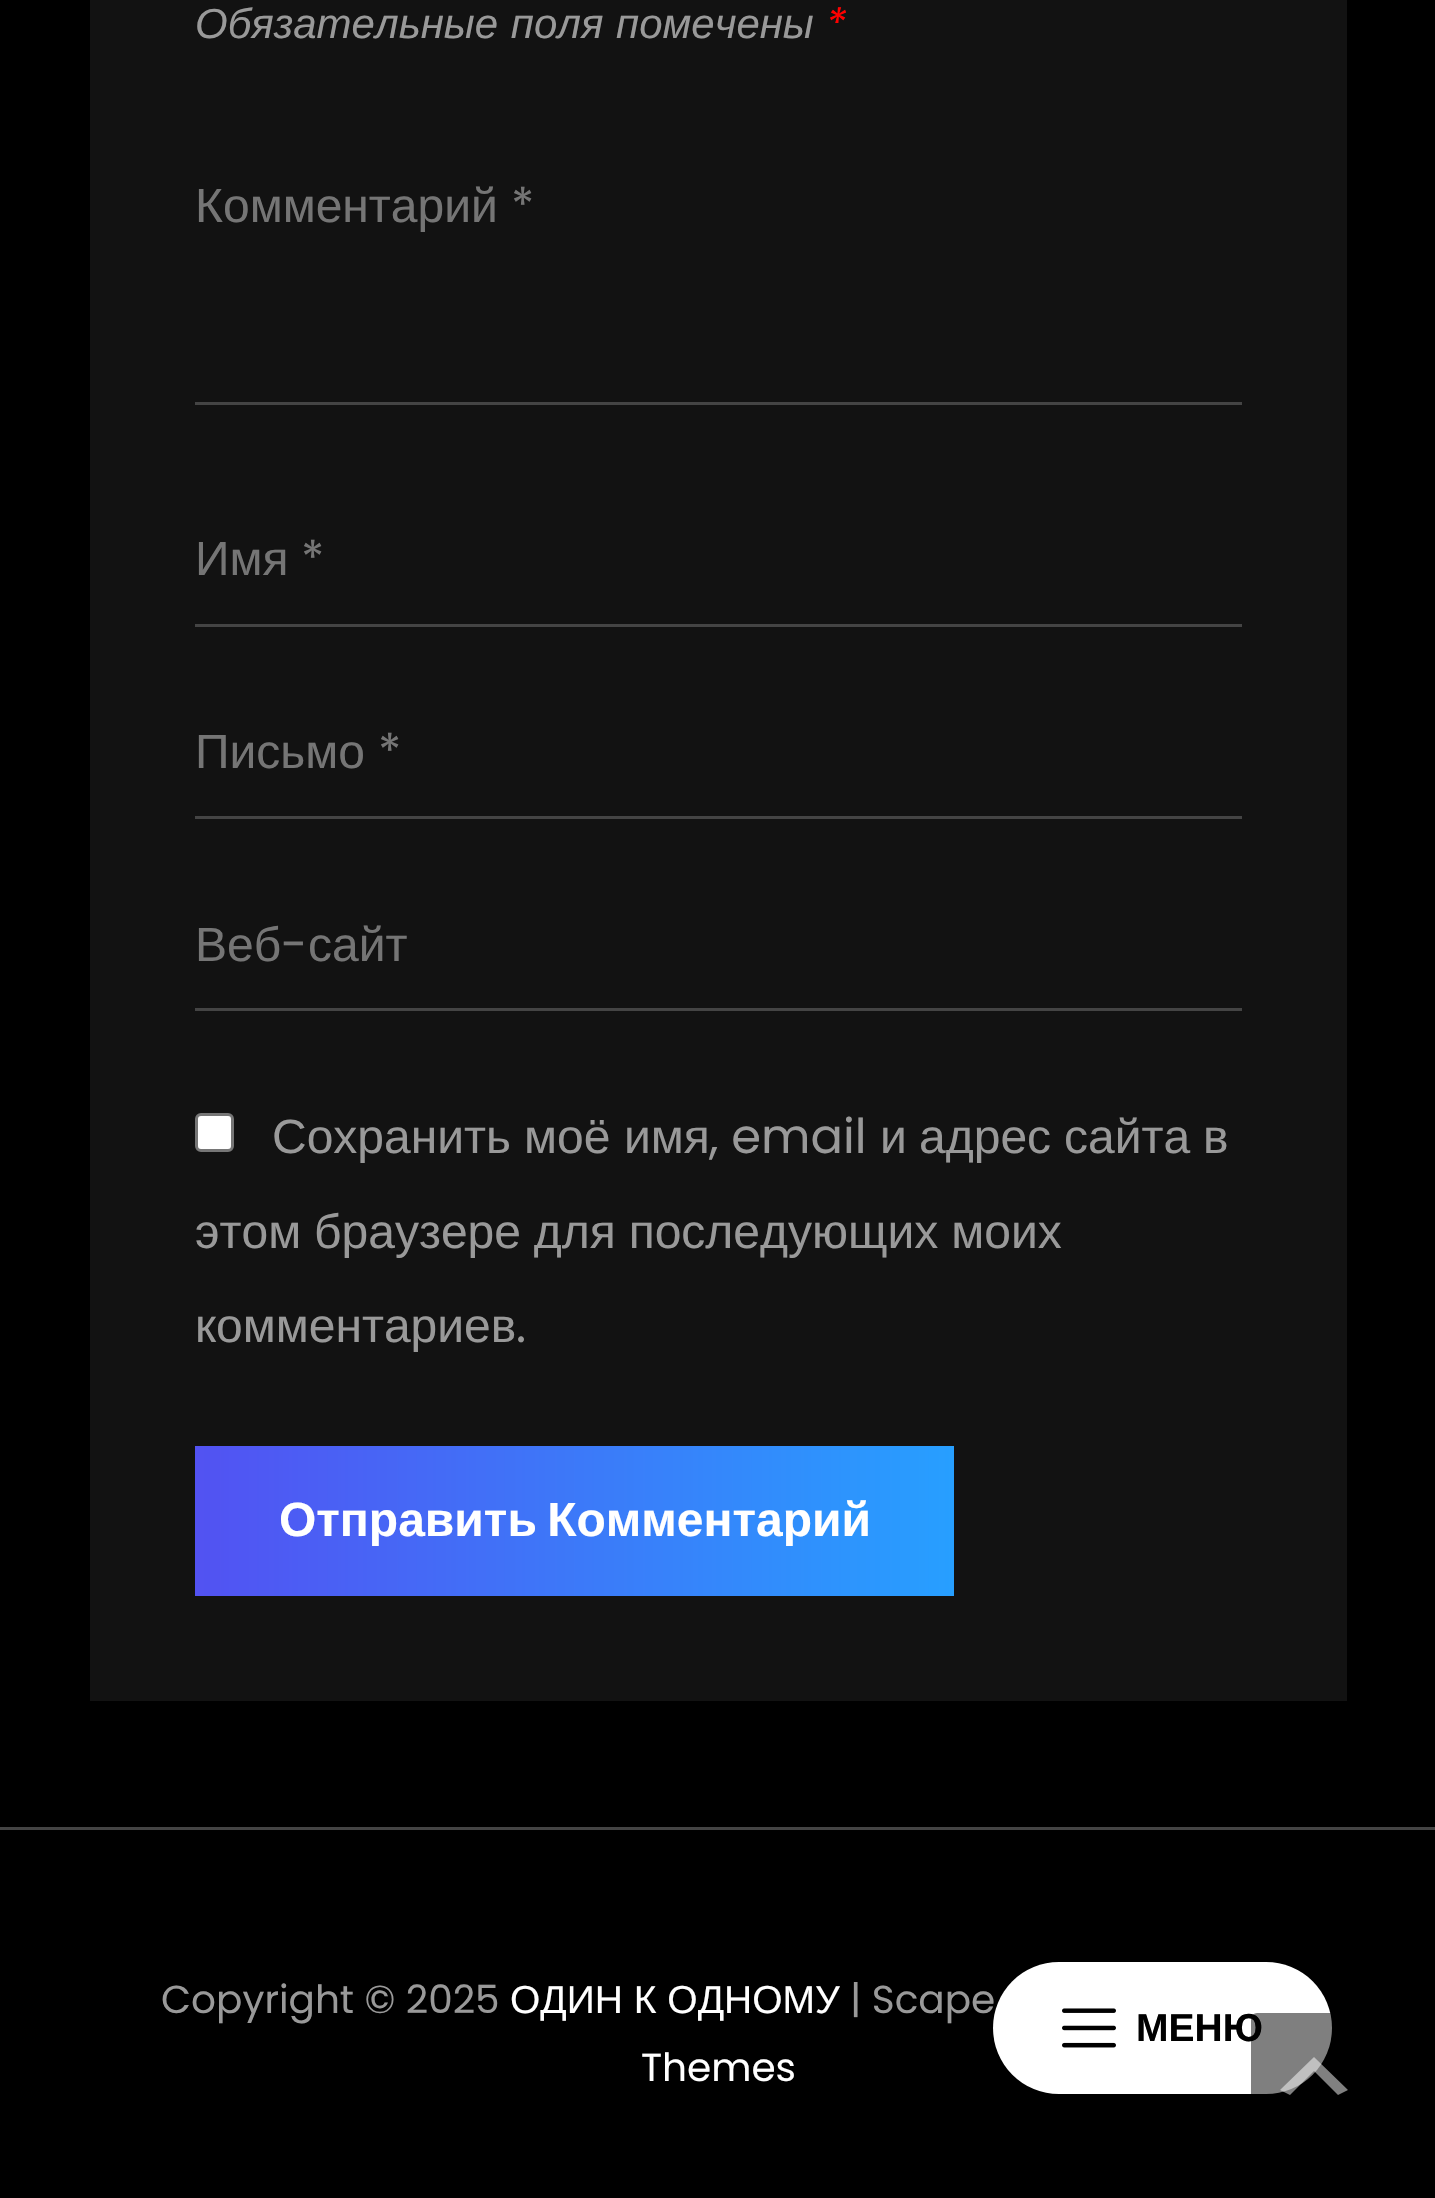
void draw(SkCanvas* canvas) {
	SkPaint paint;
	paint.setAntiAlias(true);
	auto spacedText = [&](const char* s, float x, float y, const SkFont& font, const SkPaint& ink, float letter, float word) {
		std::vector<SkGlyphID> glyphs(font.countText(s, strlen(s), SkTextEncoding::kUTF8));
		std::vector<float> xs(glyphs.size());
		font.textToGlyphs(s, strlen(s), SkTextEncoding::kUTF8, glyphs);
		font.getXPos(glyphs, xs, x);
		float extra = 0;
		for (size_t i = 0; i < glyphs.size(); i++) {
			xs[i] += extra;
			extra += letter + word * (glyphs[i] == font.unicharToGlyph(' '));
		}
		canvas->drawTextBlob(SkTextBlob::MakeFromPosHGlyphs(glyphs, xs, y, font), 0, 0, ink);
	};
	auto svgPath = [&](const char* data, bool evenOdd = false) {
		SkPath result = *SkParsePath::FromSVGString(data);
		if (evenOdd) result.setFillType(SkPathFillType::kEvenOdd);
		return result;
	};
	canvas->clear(0xff000000);
	paint.setColor(0xff121212);
	canvas->drawRect(SkRect::MakeXYWH(90, 0, 1257, 1701), paint);
	SkFont f1(fontMgr->matchFamilyStyle("Liberation Sans", SkFontStyle::Italic()), 42);
	f1.setSubpixel(true);
	paint.setColor(0xff999999);
	spacedText("Обязательные поля помечены", 195, 38, f1, paint, 0, 1);
	SkFont f2(fontMgr->matchFamilyStyle("Poppins", SkFontStyle::Italic()), 42);
	f2.setSubpixel(true);
	paint.setColor(0xffff0000);
	canvas->drawString("*", 826, 38, f2, paint);
	paint.setColor(0xff444444);
	canvas->drawRect(SkRect::MakeXYWH(195, 402, 1047, 3), paint);
	SkFont f3(fontMgr->matchFamilyStyle("Liberation Sans", SkFontStyle::Normal()), 48);
	f3.setSubpixel(true);
	paint.setColor(0xff757575);
	canvas->drawString("Комментарий", 195, 222, f3, paint);
	SkFont f4(fontMgr->matchFamilyStyle("Poppins", SkFontStyle::Normal()), 48);
	f4.setSubpixel(true);
	canvas->drawString("*", 511, 222, f4, paint);
	paint.setColor(0xff444444);
	canvas->drawRect(SkRect::MakeXYWH(195, 624, 1047, 3), paint);
	paint.setColor(0xff757575);
	canvas->drawString("Имя", 195, 575, f3, paint);
	canvas->drawString("*", 301, 575, f4, paint);
	paint.setColor(0xff444444);
	canvas->drawRect(SkRect::MakeXYWH(195, 816, 1047, 3), paint);
	paint.setColor(0xff757575);
	canvas->drawString("Письмо", 195, 768, f3, paint);
	canvas->drawString("*", 378, 768, f4, paint);
	paint.setColor(0xff444444);
	canvas->drawRect(SkRect::MakeXYWH(195, 1008, 1047, 3), paint);
	paint.setColor(0xff757575);
	canvas->drawString("Веб", 195, 961, f3, paint);
	canvas->drawString("-", 281, 961, f4, paint);
	canvas->drawString("сайт", 308, 961, f3, paint);
	paint.setColor(0xffffffff);
	canvas->drawRoundRect(SkRect::MakeXYWH(196.5, 1114.5, 36, 36), 4.5, 4.5, paint);
	paint.setStroke(true);
	paint.setStrokeWidth(3);
	paint.setColor(0xff767676);
	canvas->drawRoundRect(SkRect::MakeXYWH(196.5, 1114.5, 36, 36), 4.5, 4.5, paint);
	paint.setStroke(false);
	paint.setColor(0xff999999);
	canvas->drawString("Сохранить", 272, 1153, f3, paint);
	canvas->drawString("моё", 524, 1153, f3, paint);
	canvas->drawString("имя", 624, 1153, f3, paint);
	canvas->drawString(", email", 709, 1153, f4, paint);
	canvas->drawString("и", 880, 1153, f3, paint);
	canvas->drawString("адрес", 919, 1153, f3, paint);
	canvas->drawString("сайта", 1064, 1153, f3, paint);
	canvas->drawString("в", 1203, 1153, f3, paint);
	spacedText("этом браузере для последующих моих", 195, 1248, f3, paint, 0, -0.5);
	canvas->drawString("комментариев", 195, 1342, f3, paint);
	canvas->drawString(".", 516, 1342, f4, paint);
	{
		const SkColor colors[] = {0xff5252f2, 0xff279fff};
		const float stops[] = {0, 1};
		const SkPoint ends[] = {{195, 1521}, {954, 1521}};
		paint.setShader(SkGradientShader::MakeLinear(ends, colors, stops, 2, SkTileMode::kClamp));
		paint.setAlpha(255);
	}
	canvas->drawRect(SkRect::MakeXYWH(195, 1446, 759, 150), paint);
	SkFont f5(fontMgr->matchFamilyStyle("Liberation Sans", SkFontStyle::Bold()), 48);
	f5.setSubpixel(true);
	paint.setShader(nullptr);
	paint.setColor(0xffffffff);
	spacedText("Отправить Комментарий", 279, 1536, f5, paint, 0, -3);
	paint.setColor(0xff444444);
	canvas->drawRect(SkRect::MakeXYWH(0, 1827, 1435, 3), paint);
	SkFont f6(fontMgr->matchFamilyStyle("Poppins", SkFontStyle::Normal()), 39);
	f6.setSubpixel(true);
	paint.setColor(0xff999999);
	canvas->drawString("Copyright © 2025", 161, 2013, f6, paint);
	SkFont f7(fontMgr->matchFamilyStyle("Liberation Sans", SkFontStyle::Normal()), 39);
	f7.setSubpixel(true);
	paint.setColor(0xffffffff);
	canvas->drawString("ОДИН К ОДНОМУ", 510, 2013, f7, paint);
	paint.setColor(0xff999999);
	canvas->drawString("| Scape", 850, 2013, f6, paint);
	paint.setColor(0xffffffff);
	canvas->drawString("Themes", 641, 2081, f6, paint);
	canvas->drawRoundRect(SkRect::MakeXYWH(993, 1962, 339, 132), 66, 66, paint);
	canvas->drawImageRect(SkImages::DeferredFromEncodedData(SkData::MakeFromFileName("img1.png")), SkRect::MakeXYWH(1062, 2008, 54, 40), SkSamplingOptions());
	SkFont f8(fontMgr->matchFamilyStyle("Liberation Sans", SkFontStyle::Bold()), 39);
	f8.setSubpixel(true);
	paint.setColor(0xff000000);
	canvas->drawString("МЕНЮ", 1136, 2041, f8, paint);
	paint.setColor(0x80000000);
	canvas->drawRoundRect(SkRect::MakeXYWH(1251, 2013, 126, 126), 6, 6, paint);
	paint.setColor(0x80ffffff);
	canvas->drawPath(svgPath("M1338 2095L1314 2071L1290 2095L1280 2090L1314 2057L1348 2090Z"), paint);
}
